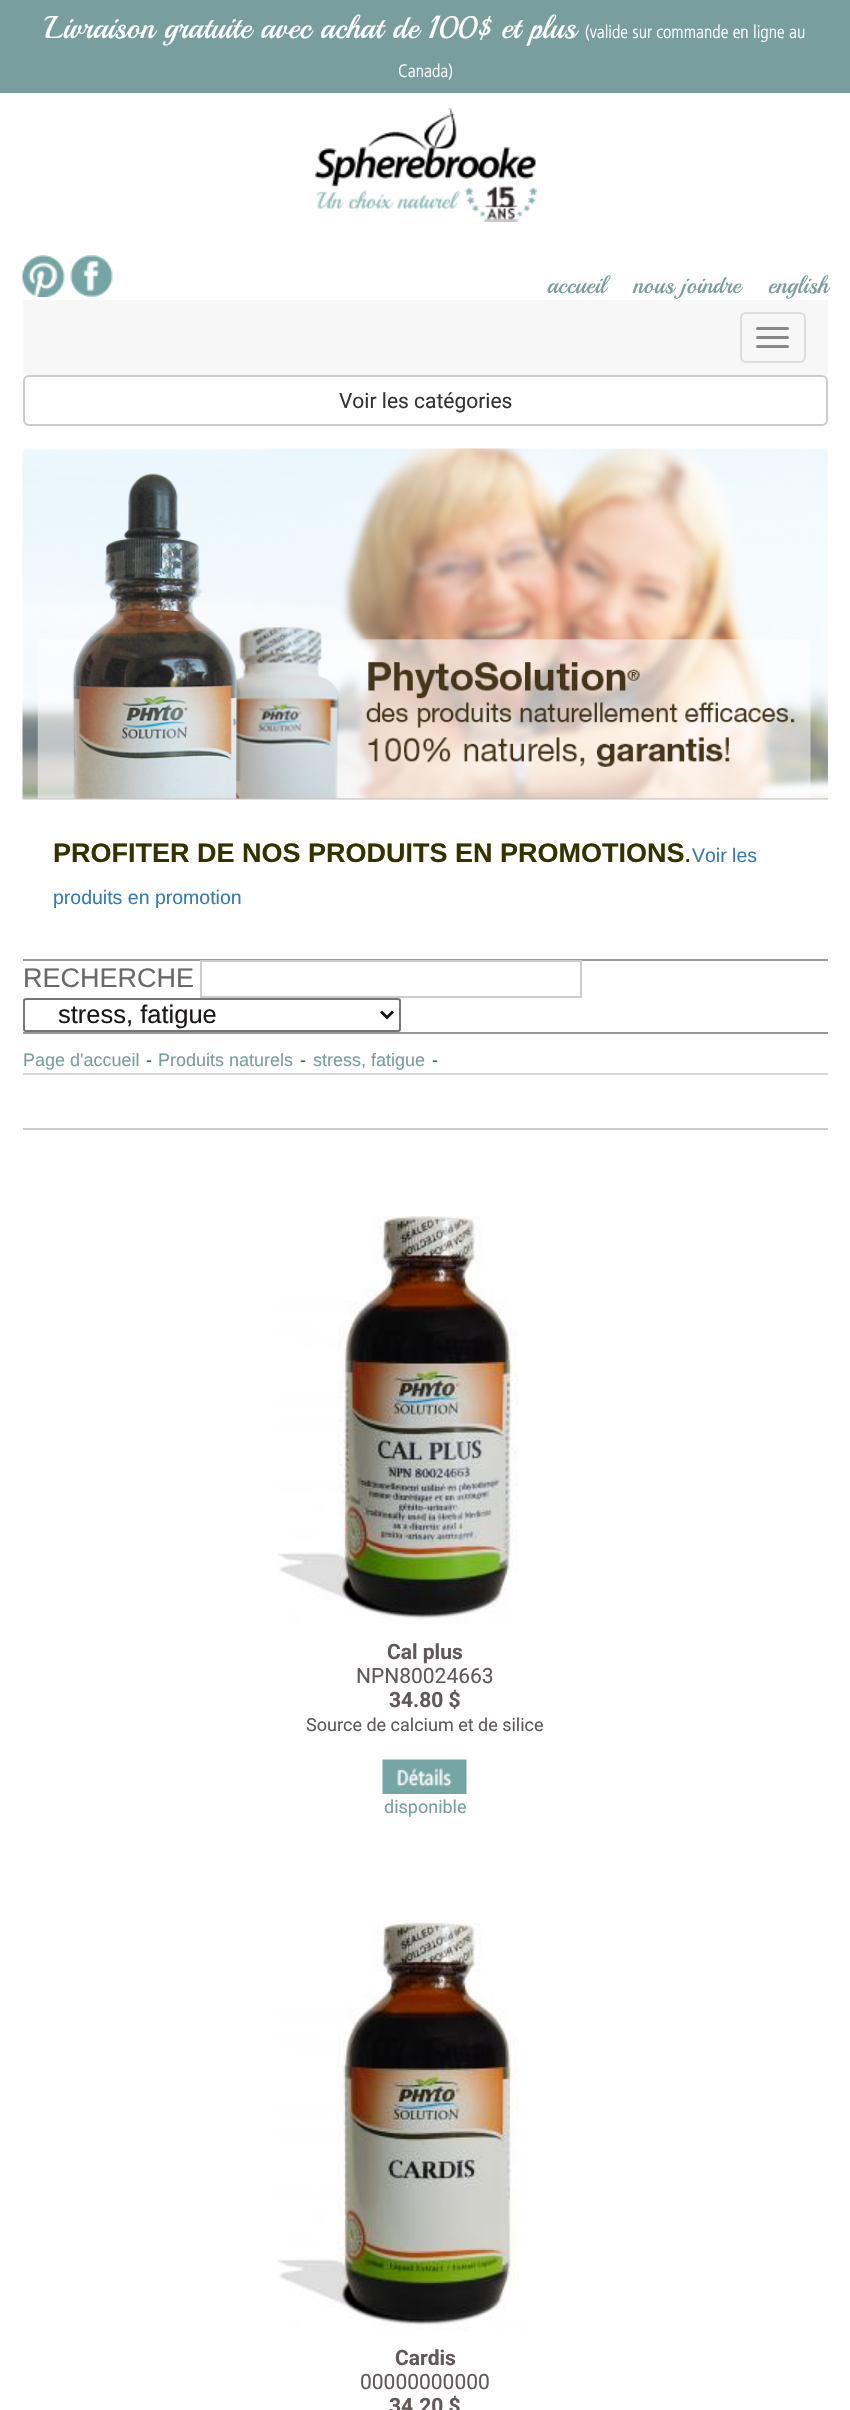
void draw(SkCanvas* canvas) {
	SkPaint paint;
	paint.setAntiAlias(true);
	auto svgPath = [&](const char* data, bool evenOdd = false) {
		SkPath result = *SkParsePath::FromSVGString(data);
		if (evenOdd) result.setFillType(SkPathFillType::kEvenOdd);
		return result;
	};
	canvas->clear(0xffffffff);
	paint.setColor(0xff789f9e);
	canvas->drawRect(SkRect::MakeXYWH(0, 0, 850, 93), paint);
	SkFont f1(fontMgr->matchFamilyStyle("Playball", SkFontStyle::Normal()), 31.5);
	f1.setSubpixel(true);
	paint.setColor(0xffffffff);
	canvas->drawString("Livraison gratuite avec achat de 100$ et plus", 45, 38, f1, paint);
	SkFont f2(fontMgr->matchFamilyStyle("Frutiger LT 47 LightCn", SkFontStyle(300, SkFontStyle::kNormal_Width, SkFontStyle::kUpright_Slant)), 18);
	f2.setSubpixel(true);
	canvas->drawString("(valide sur commande en ligne au", 585, 38, f2, paint);
	canvas->drawString("Canada)", 398, 77, f2, paint);
	canvas->drawImageRect(SkImages::DeferredFromEncodedData(SkData::MakeFromFileName("img1.png")), SkRect::MakeXYWH(315, 108, 222, 114), SkSamplingOptions());
	canvas->drawImageRect(SkImages::DeferredFromEncodedData(SkData::MakeFromFileName("img2.png")), SkRect::MakeXYWH(22, 255, 43, 42), SkSamplingOptions());
	canvas->drawImageRect(SkImages::DeferredFromEncodedData(SkData::MakeFromFileName("img3.png")), SkRect::MakeXYWH(70, 255, 43, 42), SkSamplingOptions());
	SkFont f3(fontMgr->matchFamilyStyle("Playball", SkFontStyle::Normal()), 24);
	f3.setSubpixel(true);
	paint.setColor(0xff789f9e);
	canvas->drawString("accueil", 547, 293, f3, paint);
	canvas->drawString("nous joindre", 633, 293, f3, paint);
	canvas->drawString("english", 768, 293, f3, paint);
	paint.setColor(0xfff7f7f7);
	canvas->drawRect(SkRect::MakeXYWH(23, 300, 805, 75), paint);
	paint.setStroke(true);
	paint.setStrokeWidth(2);
	paint.setColor(0xffdddddd);
	canvas->drawRoundRect(SkRect::MakeXYWH(741, 313, 64, 49), 5, 5, paint);
	paint.setStroke(false);
	paint.setColor(0xff888888);
	canvas->drawRoundRect(SkRect::MakeXYWH(756, 327, 33, 3), 1.5, 1.5, paint);
	canvas->drawRoundRect(SkRect::MakeXYWH(756, 336, 33, 3), 1.5, 1.5, paint);
	canvas->drawRoundRect(SkRect::MakeXYWH(756, 345, 33, 3), 1.5, 1.5, paint);
	paint.setStroke(true);
	paint.setColor(0xffcccccc);
	canvas->drawRoundRect(SkRect::MakeXYWH(24, 376, 803, 49), 5, 5, paint);
	SkFont f4(fontMgr->matchFamilyStyle("Roboto", SkFontStyle::Normal()), 21);
	f4.setSubpixel(true);
	paint.setStroke(false);
	paint.setColor(0xff333333);
	canvas->drawString("Voir les catégories", 339, 408, f4, paint);
	canvas->drawImageRect(SkImages::DeferredFromEncodedData(SkData::MakeFromFileName("img4.png")), SkRect::MakeXYWH(22, 448, 806, 352), SkSamplingOptions());
	SkFont f5(fontMgr->matchFamilyStyle("Liberation Sans", SkFontStyle::Bold()), 27);
	f5.setSubpixel(true);
	paint.setColor(0xff333300);
	canvas->drawString("PROFITER DE NOS PRODUITS EN PROMOTIONS", 53, 862, f5, paint);
	SkFont f6(fontMgr->matchFamilyStyle("Liberation Sans", SkFontStyle::Normal()), 27);
	f6.setSubpixel(true);
	canvas->drawString(".", 684, 862, f6, paint);
	SkFont f7(fontMgr->matchFamilyStyle("Liberation Sans", SkFontStyle::Normal()), 19.5);
	f7.setSubpixel(true);
	paint.setColor(0xff337ab7);
	canvas->drawString("Voir les", 692, 862, f7, paint);
	canvas->drawString("produits en promotion", 53, 904, f7, paint);
	paint.setColor(0xff999999);
	canvas->drawRect(SkRect::MakeXYWH(23, 959, 805, 2), paint);
	canvas->drawRect(SkRect::MakeXYWH(23, 1032, 805, 2), paint);
	paint.setColor(0xff696969);
	canvas->drawString("RECHERCHE", 23, 987, f6, paint);
	paint.setStroke(true);
	paint.setColor(0xffcccccc);
	canvas->drawRect(SkRect::MakeXYWH(201, 961, 380, 36), paint);
	paint.setColor(0xff767676);
	canvas->drawRoundRect(SkRect::MakeXYWH(24, 999, 376, 32), 2, 2, paint);
	paint.setStrokeWidth(3);
	paint.setColor(0xff1a1718);
	canvas->drawPath(svgPath("M381 1011.5L387 1017.5L393 1011.5"), paint);
	SkFont f8(fontMgr->matchFamilyStyle("Liberation Sans", SkFontStyle::Normal()), 25.5);
	f8.setSubpixel(true);
	paint.setStroke(false);
	canvas->drawString("stress, fatigue", 58, 1023, f8, paint);
	SkFont f9(fontMgr->matchFamilyStyle("Liberation Sans", SkFontStyle::Normal()), 18);
	f9.setSubpixel(true);
	paint.setColor(0xff789f9e);
	canvas->drawString("Page d'accueil", 23, 1066, f9, paint);
	paint.setColor(0xff2e6551);
	canvas->drawString("-", 146, 1066, f9, paint);
	paint.setColor(0xff789f9e);
	canvas->drawString("Produits naturels", 158, 1066, f9, paint);
	paint.setColor(0xff2e6551);
	canvas->drawString("-", 300, 1066, f9, paint);
	paint.setColor(0xff789f9e);
	canvas->drawString("stress, fatigue", 313, 1066, f9, paint);
	paint.setColor(0xff2e6551);
	canvas->drawString("-", 432, 1066, f9, paint);
	paint.setColor(0xffd9d9d9);
	canvas->drawRect(SkRect::MakeXYWH(23, 1073, 805, 2), paint);
	paint.setColor(0xffcccccc);
	canvas->drawRect(SkRect::MakeXYWH(23, 1128, 805, 2), paint);
	canvas->drawImageRect(SkImages::DeferredFromEncodedData(SkData::MakeFromFileName("img5.png")), SkRect::MakeXYWH(277, 1216, 241, 408), SkSamplingOptions());
	SkFont f10(fontMgr->matchFamilyStyle("Roboto", SkFontStyle::Bold()), 21);
	f10.setSubpixel(true);
	paint.setColor(0xff5f5959);
	canvas->drawString("Cal plus", 387, 1659, f10, paint);
	canvas->drawString("NPN80024663", 356, 1683, f4, paint);
	canvas->drawString("34.80 $", 389, 1707, f10, paint);
	SkFont f11(fontMgr->matchFamilyStyle("Roboto", SkFontStyle::Normal()), 18);
	f11.setSubpixel(true);
	canvas->drawString("Source de calcium et de silice", 306, 1731, f11, paint);
	canvas->drawImageRect(SkImages::DeferredFromEncodedData(SkData::MakeFromFileName("img6.png")), SkRect::MakeXYWH(382, 1759, 85, 35), SkSamplingOptions());
	paint.setColor(0xff789f9e);
	canvas->drawString("disponible", 384, 1813, f11, paint);
	canvas->drawImageRect(SkImages::DeferredFromEncodedData(SkData::MakeFromFileName("img7.png")), SkRect::MakeXYWH(277, 1922, 252, 409), SkSamplingOptions());
	paint.setColor(0xff5f5959);
	canvas->drawString("Cardis", 395, 2365, f10, paint);
	canvas->drawString("00000000000", 360, 2389, f4, paint);
	canvas->drawString("34.20 $", 389, 2413, f10, paint);
}
